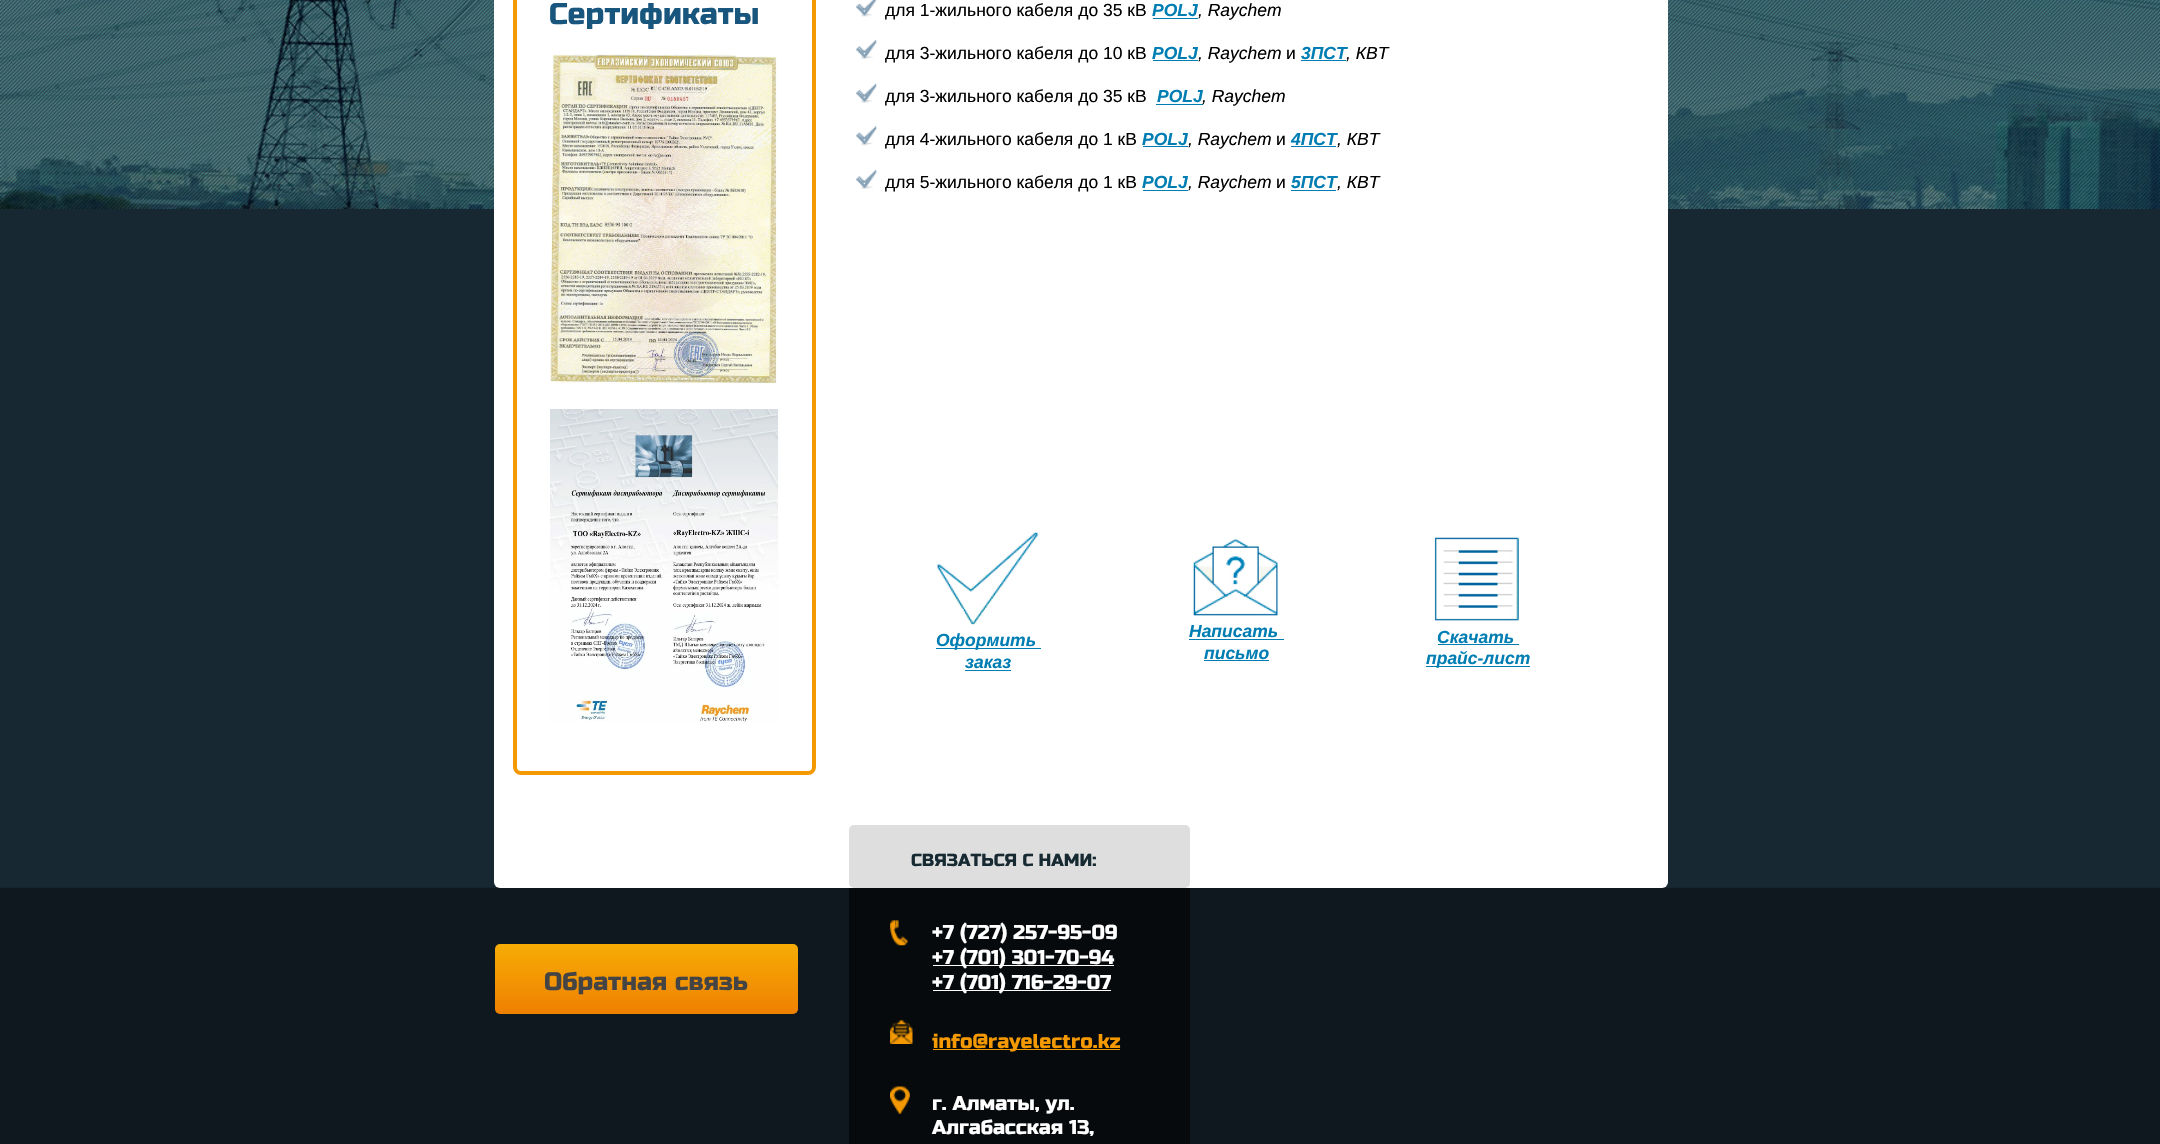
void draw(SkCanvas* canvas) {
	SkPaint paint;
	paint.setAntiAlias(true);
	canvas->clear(0xff172832);
	canvas->drawImageRect(SkImages::DeferredFromEncodedData(SkData::MakeFromFileName("img1.png")), SkRect::MakeXYWH(0, 0, 2160, 1144), SkSamplingOptions());
	paint.setColor(0xffffffff);
	canvas->drawRoundRect(SkRect::MakeXYWH(494, -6, 1174, 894), 6, 6, paint);
	paint.setStroke(true);
	paint.setStrokeWidth(4);
	paint.setColor(0xfff49902);
	canvas->drawRoundRect(SkRect::MakeXYWH(515, -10, 299, 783), 6, 6, paint);
	SkFont f1(fontMgr->matchFamilyStyle("Russo One", SkFontStyle::Normal()), 30);
	f1.setSubpixel(true);
	paint.setStroke(false);
	paint.setColor(0xff19567e);
	canvas->drawString("Сертификаты", 549, 24, f1, paint);
	canvas->drawImageRect(SkImages::DeferredFromEncodedData(SkData::MakeFromFileName("img2.png")), SkRect::MakeXYWH(550, 54, 227, 330), SkSamplingOptions());
	canvas->drawImageRect(SkImages::DeferredFromEncodedData(SkData::MakeFromFileName("img3.png")), SkRect::MakeXYWH(550, 409, 229, 313), SkSamplingOptions());
	canvas->drawImageRect(SkImages::DeferredFromEncodedData(SkData::MakeFromFileName("img4.png")), SkRect::MakeXYWH(856, 0, 21, 17), SkSamplingOptions());
	SkFont f2(fontMgr->matchFamilyStyle("Liberation Sans", SkFontStyle::Normal()), 17.5);
	f2.setSubpixel(true);
	paint.setColor(0xff000000);
	canvas->drawString("для 1-жильного кабеля до 35 кВ", 885, 16, f2, paint);
	SkFont f3(fontMgr->matchFamilyStyle("Liberation Sans", SkFontStyle::BoldItalic()), 17.5);
	f3.setSubpixel(true);
	paint.setColor(0xff007eb3);
	canvas->drawString("POLJ", 1152, 16, f3, paint);
	canvas->drawRect(SkRect::MakeXYWH(1153, 18, 45, 1), paint);
	SkFont f4(fontMgr->matchFamilyStyle("Liberation Sans", SkFontStyle::Italic()), 17.5);
	f4.setSubpixel(true);
	paint.setColor(0xff000000);
	canvas->drawString(", Raychem", 1198, 16, f4, paint);
	canvas->drawImageRect(SkImages::DeferredFromEncodedData(SkData::MakeFromFileName("img5.png")), SkRect::MakeXYWH(856, 39, 21, 20), SkSamplingOptions());
	canvas->drawString("для 3-жильного кабеля до 10 кВ", 885, 59, f2, paint);
	paint.setColor(0xff007eb3);
	canvas->drawString("POLJ", 1152, 59, f3, paint);
	canvas->drawRect(SkRect::MakeXYWH(1153, 60, 45, 1), paint);
	paint.setColor(0xff000000);
	canvas->drawString(", Raychem", 1198, 59, f4, paint);
	canvas->drawString("и", 1286, 59, f2, paint);
	paint.setColor(0xff007eb3);
	canvas->drawString("3ПСТ", 1301, 59, f3, paint);
	paint.setColor(0xff000000);
	canvas->drawString(", КВТ", 1346, 59, f4, paint);
	paint.setColor(0xff007eb3);
	canvas->drawRect(SkRect::MakeXYWH(1301, 60, 45, 1), paint);
	canvas->drawImageRect(SkImages::DeferredFromEncodedData(SkData::MakeFromFileName("img6.png")), SkRect::MakeXYWH(856, 83, 21, 20), SkSamplingOptions());
	paint.setColor(0xff000000);
	canvas->drawString("для 3-жильного кабеля до 35 кВ", 885, 102, f2, paint);
	paint.setColor(0xff007eb3);
	canvas->drawString("POLJ", 1157, 102, f3, paint);
	canvas->drawRect(SkRect::MakeXYWH(1156, 104, 47, 1), paint);
	paint.setColor(0xff000000);
	canvas->drawString(", Raychem", 1202, 102, f4, paint);
	canvas->drawImageRect(SkImages::DeferredFromEncodedData(SkData::MakeFromFileName("img7.png")), SkRect::MakeXYWH(856, 125, 21, 21), SkSamplingOptions());
	canvas->drawString("для 4-жильного кабеля до 1 кВ", 885, 145, f2, paint);
	paint.setColor(0xff007eb3);
	canvas->drawString("POLJ", 1142, 145, f3, paint);
	paint.setColor(0xff000000);
	canvas->drawString(", Raychem", 1188, 145, f4, paint);
	paint.setColor(0xff007eb3);
	canvas->drawRect(SkRect::MakeXYWH(1143, 146, 45, 1), paint);
	paint.setColor(0xff000000);
	canvas->drawString("и", 1276, 145, f2, paint);
	paint.setColor(0xff007eb3);
	canvas->drawString("4ПСТ", 1291, 145, f3, paint);
	paint.setColor(0xff000000);
	canvas->drawString(", КВТ", 1337, 145, f4, paint);
	paint.setColor(0xff007eb3);
	canvas->drawRect(SkRect::MakeXYWH(1291, 146, 45, 1), paint);
	canvas->drawImageRect(SkImages::DeferredFromEncodedData(SkData::MakeFromFileName("img5.png")), SkRect::MakeXYWH(856, 169, 21, 20), SkSamplingOptions());
	paint.setColor(0xff000000);
	canvas->drawString("для 5-жильного кабеля до 1 кВ", 885, 188, f2, paint);
	paint.setColor(0xff007eb3);
	canvas->drawString("POLJ", 1142, 188, f3, paint);
	paint.setColor(0xff000000);
	canvas->drawString(", Raychem", 1188, 188, f4, paint);
	paint.setColor(0xff007eb3);
	canvas->drawRect(SkRect::MakeXYWH(1143, 190, 45, 1), paint);
	paint.setColor(0xff000000);
	canvas->drawString("и", 1276, 188, f2, paint);
	paint.setColor(0xff007eb3);
	canvas->drawString("5ПСТ", 1291, 188, f3, paint);
	paint.setColor(0xff000000);
	canvas->drawString(", КВТ", 1337, 188, f4, paint);
	paint.setColor(0xff007eb3);
	canvas->drawRect(SkRect::MakeXYWH(1291, 190, 45, 1), paint);
	canvas->drawImageRect(SkImages::DeferredFromEncodedData(SkData::MakeFromFileName("img8.png")), SkRect::MakeXYWH(937, 532, 101, 93), SkSamplingOptions());
	canvas->drawRect(SkRect::MakeXYWH(936, 648, 105, 1), paint);
	canvas->drawString("Оформить", 936, 646, f3, paint);
	canvas->drawString("заказ", 965, 668, f3, paint);
	canvas->drawRect(SkRect::MakeXYWH(965, 670, 46, 1), paint);
	canvas->drawImageRect(SkImages::DeferredFromEncodedData(SkData::MakeFromFileName("img9.png")), SkRect::MakeXYWH(1193, 538, 85, 78), SkSamplingOptions());
	canvas->drawString("Написать", 1189, 637, f3, paint);
	canvas->drawRect(SkRect::MakeXYWH(1189, 639, 95, 1), paint);
	canvas->drawString("письмо", 1204, 659, f3, paint);
	canvas->drawRect(SkRect::MakeXYWH(1204, 660, 65, 1), paint);
	canvas->drawImageRect(SkImages::DeferredFromEncodedData(SkData::MakeFromFileName("img10.png")), SkRect::MakeXYWH(1434, 537, 85, 84), SkSamplingOptions());
	canvas->drawString("Скачать", 1437, 643, f3, paint);
	canvas->drawRect(SkRect::MakeXYWH(1438, 644, 81, 1), paint);
	canvas->drawRect(SkRect::MakeXYWH(1426, 666, 104, 1), paint);
	canvas->drawString("прайс-лист", 1426, 664, f3, paint);
	paint.setColor(0xffdedede);
	canvas->drawRoundRect(SkRect::MakeXYWH(849, 825, 341, 63), 5, 5, paint);
	SkFont f5(fontMgr->matchFamilyStyle("Russo One", SkFontStyle::Normal()), 17.5);
	f5.setSubpixel(true);
	paint.setColor(0xff172a32);
	canvas->drawString("СВЯЗАТЬСЯ С НАМИ:", 911, 866, f5, paint);
	{
		const SkColor colors[] = {0xfff6ac05, 0xffef8001};
		const float stops[] = {0, 1};
		const SkPoint ends[] = {{646, 944}, {646, 1014}};
		paint.setShader(SkGradientShader::MakeLinear(ends, colors, stops, 2, SkTileMode::kClamp));
		paint.setAlpha(255);
	}
	canvas->drawRoundRect(SkRect::MakeXYWH(495, 944, 303, 70), 5, 5, paint);
	SkFont f6(fontMgr->matchFamilyStyle("Russo One", SkFontStyle::Normal()), 25);
	f6.setSubpixel(true);
	paint.setShader(nullptr);
	paint.setColor(0xff444444);
	canvas->drawString("Обратная связь", 544, 990, f6, paint);
	paint.setColor(0xff060a0c);
	canvas->drawRect(SkRect::MakeXYWH(849, 888, 341, 256), paint);
	canvas->drawImageRect(SkImages::DeferredFromEncodedData(SkData::MakeFromFileName("img11.png")), SkRect::MakeXYWH(890, 920, 18, 26), SkSamplingOptions());
	SkFont f7(fontMgr->matchFamilyStyle("Russo One", SkFontStyle::Normal()), 20);
	f7.setSubpixel(true);
	paint.setColor(0xffffffff);
	canvas->drawString("+7 (727) 257-95-09", 932, 939, f7, paint);
	canvas->drawRect(SkRect::MakeXYWH(933, 965, 181, 1), paint);
	canvas->drawString("+7 (701) 301-70-94", 932, 964, f7, paint);
	canvas->drawRect(SkRect::MakeXYWH(933, 990, 178, 1), paint);
	canvas->drawString("+7 (701) 716-29-07", 932, 989, f7, paint);
	canvas->drawImageRect(SkImages::DeferredFromEncodedData(SkData::MakeFromFileName("img12.png")), SkRect::MakeXYWH(890, 1020, 23, 24), SkSamplingOptions());
	paint.setColor(0xfff49902);
	canvas->drawRect(SkRect::MakeXYWH(933, 1049, 187, 1), paint);
	canvas->drawString("info@rayelectro.kz", 932, 1048, f7, paint);
	canvas->drawImageRect(SkImages::DeferredFromEncodedData(SkData::MakeFromFileName("img13.png")), SkRect::MakeXYWH(890, 1086, 20, 28), SkSamplingOptions());
	paint.setColor(0xffffffff);
	canvas->drawString("г. Алматы, ул.", 932, 1110, f7, paint);
	canvas->drawString("Алгабасская 13,", 932, 1134, f7, paint);
}
